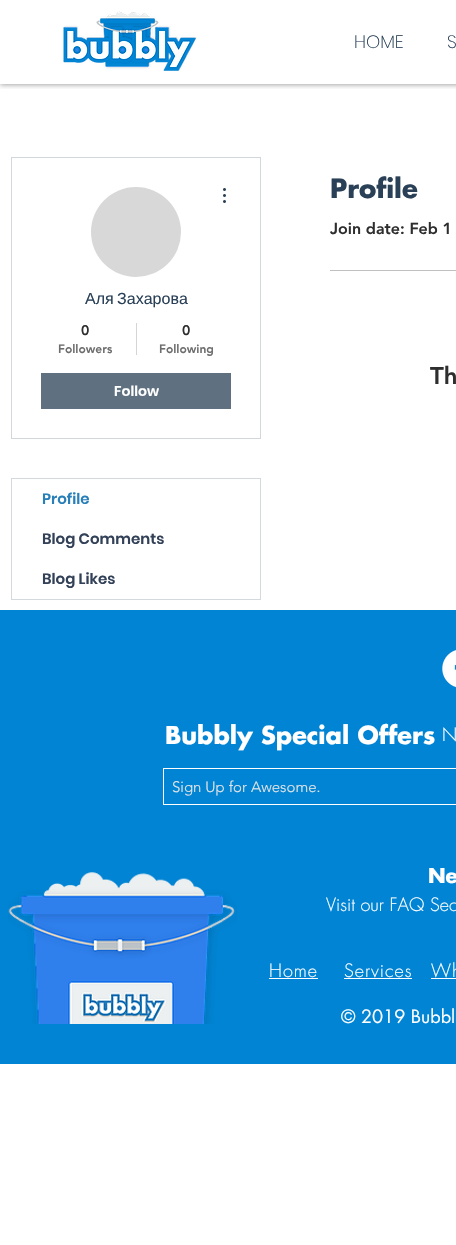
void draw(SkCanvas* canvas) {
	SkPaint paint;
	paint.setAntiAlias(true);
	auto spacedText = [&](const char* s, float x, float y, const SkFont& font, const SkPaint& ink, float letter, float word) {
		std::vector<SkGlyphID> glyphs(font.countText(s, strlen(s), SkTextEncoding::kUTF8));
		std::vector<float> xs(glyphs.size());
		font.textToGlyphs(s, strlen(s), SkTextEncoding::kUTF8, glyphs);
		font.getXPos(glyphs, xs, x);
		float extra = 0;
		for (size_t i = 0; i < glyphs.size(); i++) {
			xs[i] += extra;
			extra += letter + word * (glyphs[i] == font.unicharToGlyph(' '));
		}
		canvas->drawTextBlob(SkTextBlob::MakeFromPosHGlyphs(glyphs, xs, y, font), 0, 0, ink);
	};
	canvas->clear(0xffffffff);
	canvas->save();
	canvas->clipRect(SkRect::MakeXYWH(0, 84, 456, 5));
	paint.setColor(0x59000000);
	paint.setMaskFilter(SkMaskFilter::MakeBlur(kNormal_SkBlurStyle, 2.5));
	canvas->drawRect(SkRect::MakeXYWH(0, 1, 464, 84), paint);
	paint.setMaskFilter(nullptr);
	canvas->restore();
	canvas->drawImageRect(SkImages::DeferredFromEncodedData(SkData::MakeFromFileName("img1.png")), SkRect::MakeXYWH(63, 11, 134, 60), SkSamplingOptions());
	SkFont f1(fontMgr->matchFamilyStyle("Poppins", SkFontStyle(200, SkFontStyle::kNormal_Width, SkFontStyle::kUpright_Slant)), 18);
	f1.setSubpixel(true);
	paint.setColor(0xff294057);
	canvas->drawString("HOME", 354, 48, f1, paint);
	canvas->drawString("S", 447, 48, f1, paint);
	paint.setStroke(true);
	paint.setStrokeWidth(1);
	paint.setColor(0xffd2d7dc);
	canvas->drawRect(SkRect::MakeXYWH(11.5, 157.5, 249, 281), paint);
	paint.setStroke(false);
	paint.setColor(0xffd8d8d8);
	canvas->drawCircle(136, 232, 45, paint);
	canvas->drawImageRect(SkImages::DeferredFromEncodedData(SkData::MakeFromFileName("img2.png")), SkRect::MakeXYWH(223, 188, 3, 15), SkSamplingOptions());
	SkFont f2(fontMgr->matchFamilyStyle("Liberation Sans", SkFontStyle::Normal()), 16);
	f2.setSubpixel(true);
	paint.setColor(0xff294057);
	spacedText("Аля Захарова", 85, 304, f2, paint, 0, -1);
	SkFont f3(fontMgr->matchFamilyStyle("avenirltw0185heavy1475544", SkFontStyle(900, SkFontStyle::kNormal_Width, SkFontStyle::kUpright_Slant)), 14);
	f3.setSubpixel(true);
	paint.setColor(0xff2f2e2e);
	canvas->drawString("0", 81, 335, f3, paint);
	SkFont f4(fontMgr->matchFamilyStyle("avenirltw0185heavy1475544", SkFontStyle(900, SkFontStyle::kNormal_Width, SkFontStyle::kUpright_Slant)), 12);
	f4.setSubpixel(true);
	paint.setColor(0xff6d6d6d);
	canvas->drawString("Followers", 58, 353, f4, paint);
	paint.setColor(0xffd5d5d5);
	canvas->drawRect(SkRect::MakeXYWH(136, 323, 1, 32), paint);
	paint.setColor(0xff2f2e2e);
	canvas->drawString("0", 182, 335, f3, paint);
	paint.setColor(0xff6d6d6d);
	canvas->drawString("Following", 159, 353, f4, paint);
	paint.setColor(0xff5f7081);
	canvas->drawRect(SkRect::MakeXYWH(41, 373, 190, 36), paint);
	SkFont f5(fontMgr->matchFamilyStyle("Poppins", SkFontStyle(600, SkFontStyle::kNormal_Width, SkFontStyle::kUpright_Slant)), 14);
	f5.setSubpixel(true);
	paint.setColor(0xffffffff);
	canvas->drawString("Follow", 114, 396, f5, paint);
	paint.setStroke(true);
	paint.setColor(0xffd4d9dd);
	canvas->drawRect(SkRect::MakeXYWH(11.5, 478.5, 249, 121), paint);
	SkFont f6(fontMgr->matchFamilyStyle("Poppins", SkFontStyle(600, SkFontStyle::kNormal_Width, SkFontStyle::kUpright_Slant)), 15);
	f6.setSubpixel(true);
	paint.setStroke(false);
	paint.setColor(0xff2980b9);
	canvas->drawString("Profile", 42, 504, f6, paint);
	paint.setColor(0xff324158);
	canvas->drawString("Blog Comments", 42, 544, f6, paint);
	canvas->drawString("Blog Likes", 42, 584, f6, paint);
	SkFont f7(fontMgr->matchFamilyStyle("Futura", SkFontStyle::Bold()), 26);
	f7.setSubpixel(true);
	paint.setColor(0xff294057);
	canvas->drawString("Profile", 330, 198, f7, paint);
	SkFont f8(fontMgr->matchFamilyStyle("avenirltw0185heavy1475544", SkFontStyle(900, SkFontStyle::kNormal_Width, SkFontStyle::kUpright_Slant)), 16);
	f8.setSubpixel(true);
	paint.setColor(0xff2f2e2e);
	canvas->drawString("Join date: Feb 1", 330, 234, f8, paint);
	paint.setColor(0xffc1c0c0);
	canvas->drawRect(SkRect::MakeXYWH(330, 270, 126, 1), paint);
	SkFont f9(fontMgr->matchFamilyStyle("avenirltw0185heavy1475544", SkFontStyle(900, SkFontStyle::kNormal_Width, SkFontStyle::kUpright_Slant)), 24);
	f9.setSubpixel(true);
	paint.setColor(0xff2f2e2e);
	canvas->drawString("Th", 430, 384, f9, paint);
	paint.setColor(0xff0184d4);
	canvas->drawRect(SkRect::MakeXYWH(0, 610, 456, 454), paint);
	canvas->drawImageRect(SkImages::DeferredFromEncodedData(SkData::MakeFromFileName("img3.png")), SkRect::MakeXYWH(442, 650, 14, 38), SkSamplingOptions());
	SkFont f10(fontMgr->matchFamilyStyle("Futura", SkFontStyle::Bold()), 24);
	f10.setSubpixel(true);
	paint.setColor(0xffffffff);
	canvas->drawString("Bubbly Special Offers", 165, 744, f10, paint);
	SkFont f11(fontMgr->matchFamilyStyle("futura", SkFontStyle(300, SkFontStyle::kNormal_Width, SkFontStyle::kUpright_Slant)), 18);
	f11.setSubpixel(true);
	canvas->drawString("N", 442, 741, f11, paint);
	paint.setStroke(true);
	canvas->drawRect(SkRect::MakeXYWH(163.5, 768.5, 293, 36), paint);
	SkFont f12(fontMgr->matchFamilyStyle("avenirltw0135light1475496", SkFontStyle(300, SkFontStyle::kNormal_Width, SkFontStyle::kUpright_Slant)), 15);
	f12.setSubpixel(true);
	paint.setStroke(false);
	paint.setColor(0xffe5e5e5);
	canvas->drawString("Sign Up for Awesome.", 172, 792, f12, paint);
	canvas->drawImageRect(SkImages::DeferredFromEncodedData(SkData::MakeFromFileName("img4.png")), SkRect::MakeXYWH(8, 872, 229, 152), SkSamplingOptions());
	SkFont f13(fontMgr->matchFamilyStyle("Futura", SkFontStyle::Bold()), 20);
	f13.setSubpixel(true);
	paint.setColor(0xffffffff);
	canvas->drawString("Ne", 428, 883, f13, paint);
	canvas->drawString("Visit our FAQ Sec", 326, 911, f11, paint);
	spacedText("Home", 269, 977, f11, paint, 1, 0);
	canvas->drawRect(SkRect::MakeXYWH(269, 978, 49, 1), paint);
	spacedText("Services", 344, 977, f11, paint, 1, 0);
	canvas->drawRect(SkRect::MakeXYWH(344, 978, 68, 1), paint);
	spacedText("Wh", 431, 977, f11, paint, 1, 0);
	canvas->drawRect(SkRect::MakeXYWH(431, 978, 25, 1), paint);
	SkFont f14(fontMgr->matchFamilyStyle("futura", SkFontStyle::Normal()), 18);
	f14.setSubpixel(true);
	canvas->drawString("© 2019 Bubbl", 341, 1023, f14, paint);
}
